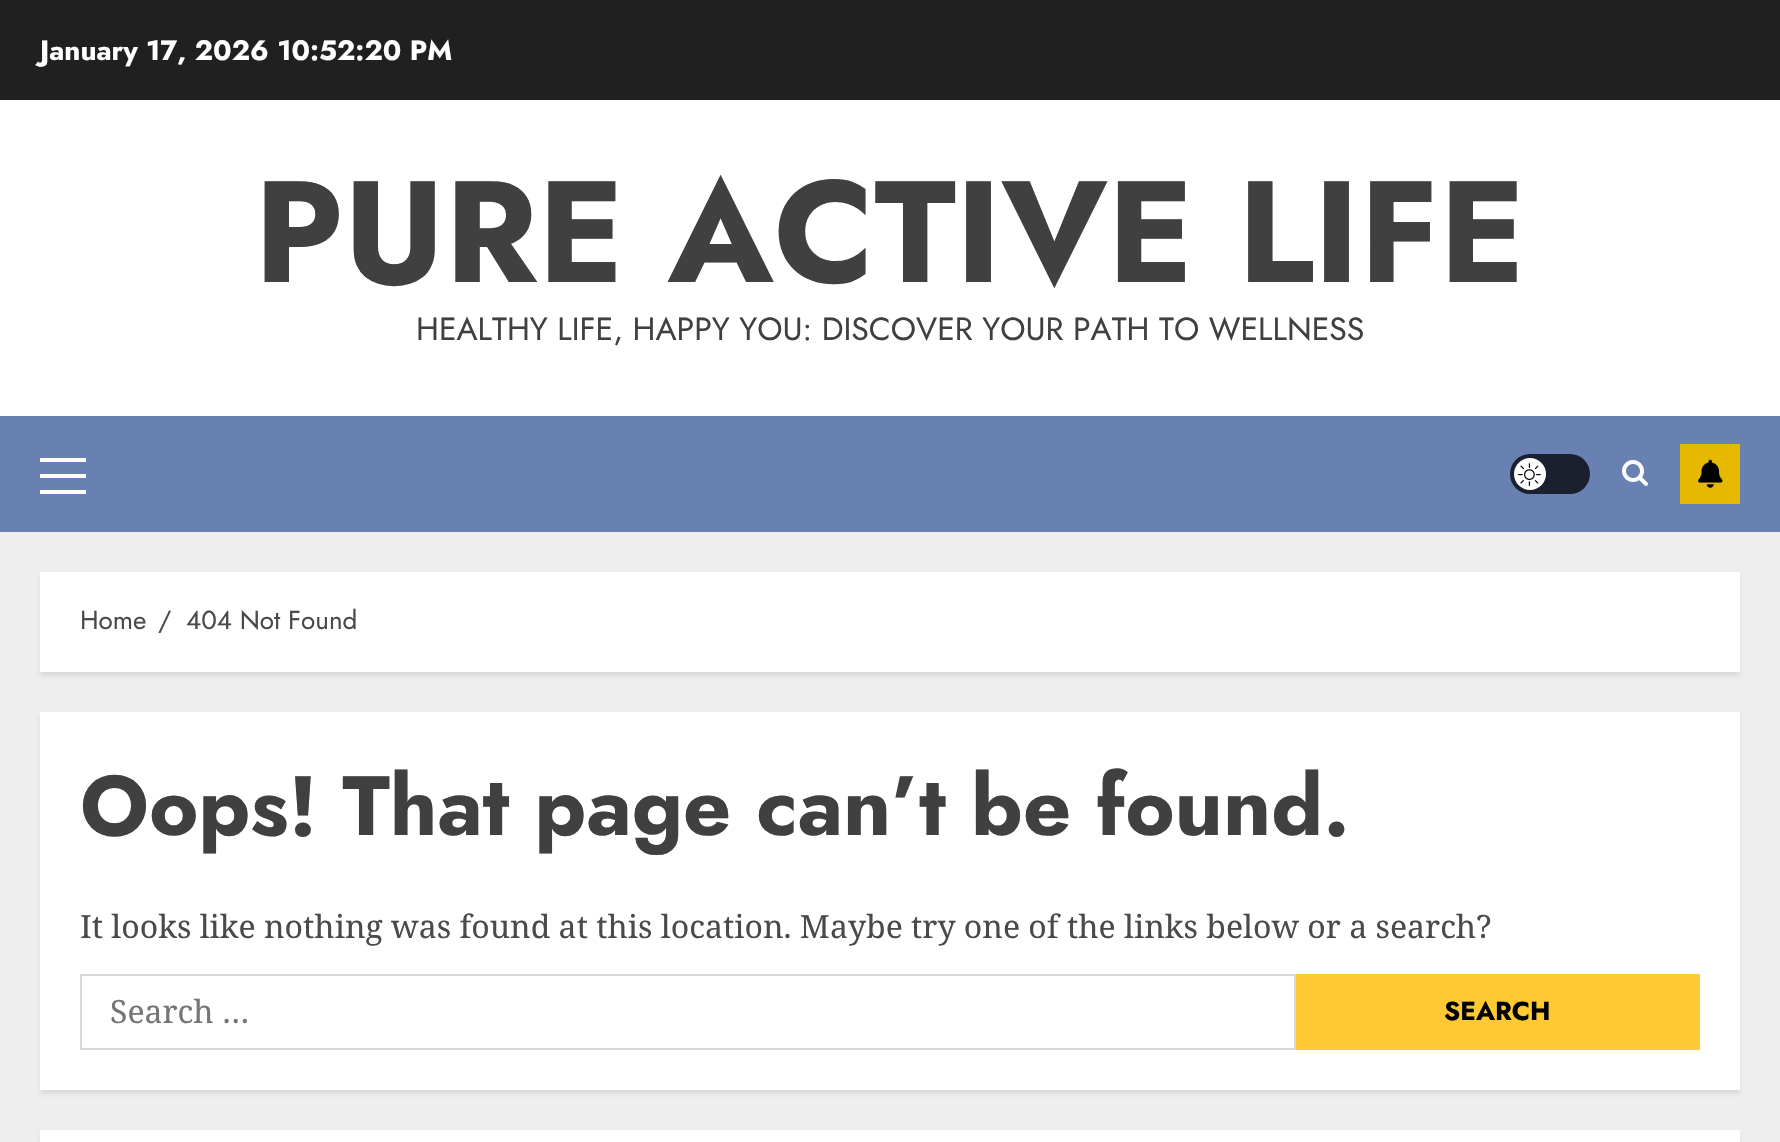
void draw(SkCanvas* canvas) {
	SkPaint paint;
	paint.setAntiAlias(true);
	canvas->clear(0xffeeeeee);
	paint.setColor(0xff202020);
	canvas->drawRect(SkRect::MakeXYWH(0, 0, 1780, 100), paint);
	SkFont f1(fontMgr->matchFamilyStyle("Jost", SkFontStyle::Bold()), 28);
	f1.setSubpixel(true);
	paint.setColor(0xffffffff);
	canvas->drawString("January 17, 2026 10:52:20 PM", 40, 60, f1, paint);
	canvas->drawRect(SkRect::MakeXYWH(0, 100, 1780, 316), paint);
	SkFont f2(fontMgr->matchFamilyStyle("Jost", SkFontStyle::Bold()), 144);
	f2.setSubpixel(true);
	paint.setColor(0xff404040);
	canvas->drawString("PURE ACTIVE LIFE", 254, 282, f2, paint);
	SkFont f3(fontMgr->matchFamilyStyle("Jost", SkFontStyle::Normal()), 32);
	f3.setSubpixel(true);
	canvas->drawString("HEALTHY LIFE, HAPPY YOU: DISCOVER YOUR PATH TO WELLNESS", 416, 340, f3, paint);
	paint.setColor(0xff6981b2);
	canvas->drawRect(SkRect::MakeXYWH(0, 416, 1780, 116), paint);
	paint.setColor(0xffffffff);
	canvas->drawRect(SkRect::MakeXYWH(40, 474, 46, 4), paint);
	canvas->drawRect(SkRect::MakeXYWH(40, 458, 46, 4), paint);
	canvas->drawRect(SkRect::MakeXYWH(40, 490, 46, 4), paint);
	paint.setColor(0xff1a202d);
	canvas->drawRoundRect(SkRect::MakeXYWH(1510, 454, 80, 40), 20, 20, paint);
	paint.setColor(0xffffffff);
	canvas->drawCircle(1530, 474, 16, paint);
	canvas->drawImageRect(SkImages::DeferredFromEncodedData(SkData::MakeFromFileName("img1.png")), SkRect::MakeXYWH(1518, 463, 23, 23), SkSamplingOptions());
	canvas->drawImageRect(SkImages::DeferredFromEncodedData(SkData::MakeFromFileName("img2.png")), SkRect::MakeXYWH(1622, 460, 26, 26), SkSamplingOptions());
	paint.setColor(0xffe6b800);
	canvas->drawRect(SkRect::MakeXYWH(1680, 444, 60, 60), paint);
	canvas->drawImageRect(SkImages::DeferredFromEncodedData(SkData::MakeFromFileName("img3.png")), SkRect::MakeXYWH(1698, 459, 25, 29), SkSamplingOptions());
	paint.setColor(0x14000000);
	paint.setMaskFilter(SkMaskFilter::MakeBlur(kNormal_SkBlurStyle, 2));
	canvas->drawRect(SkRect::MakeXYWH(40, 576, 1700, 100), paint);
	paint.setMaskFilter(nullptr);
	paint.setColor(0xffffffff);
	canvas->drawRect(SkRect::MakeXYWH(40, 572, 1700, 100), paint);
	SkFont f4(fontMgr->matchFamilyStyle("Jost", SkFontStyle::Normal()), 26);
	f4.setSubpixel(true);
	paint.setColor(0xff4a4a4a);
	canvas->drawString("Home", 80, 629, f4, paint);
	canvas->drawString("/", 158, 629, f4, paint);
	canvas->drawString("404 Not Found", 186, 629, f4, paint);
	paint.setColor(0x14000000);
	paint.setMaskFilter(SkMaskFilter::MakeBlur(kNormal_SkBlurStyle, 2));
	canvas->drawRect(SkRect::MakeXYWH(40, 716, 1700, 378), paint);
	paint.setMaskFilter(nullptr);
	paint.setColor(0xffffffff);
	canvas->drawRect(SkRect::MakeXYWH(40, 712, 1700, 378), paint);
	SkFont f5(fontMgr->matchFamilyStyle("Jost", SkFontStyle::Bold()), 84);
	f5.setSubpixel(true);
	paint.setColor(0xff404040);
	canvas->drawString("Oops! That page can’t be found.", 80, 835, f5, paint);
	SkFont f6(fontMgr->matchFamilyStyle("Noto Serif", SkFontStyle::Normal()), 32);
	f6.setSubpixel(true);
	paint.setColor(0xff4a4a4a);
	canvas->drawString("It looks like nothing was found at this location. Maybe try one of the links below or a search?", 80, 938, f6, paint);
	paint.setStroke(true);
	paint.setStrokeWidth(2);
	paint.setColor(0xffd9d9d9);
	canvas->drawRect(SkRect::MakeXYWH(81, 975, 1214, 74), paint);
	paint.setStroke(false);
	paint.setColor(0xff757575);
	canvas->drawString("Search …", 110, 1023, f6, paint);
	paint.setColor(0xffffc934);
	canvas->drawRect(SkRect::MakeXYWH(1296, 974, 404, 76), paint);
	SkFont f7(fontMgr->matchFamilyStyle("Jost", SkFontStyle::Bold()), 26);
	f7.setSubpixel(true);
	paint.setColor(0xff000000);
	canvas->drawString("SEARCH", 1444, 1020, f7, paint);
	paint.setColor(0x14000000);
	paint.setMaskFilter(SkMaskFilter::MakeBlur(kNormal_SkBlurStyle, 2));
	canvas->drawRect(SkRect::MakeXYWH(40, 1134, 1700, 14), paint);
	paint.setMaskFilter(nullptr);
	paint.setColor(0xffffffff);
	canvas->drawRect(SkRect::MakeXYWH(40, 1130, 1700, 12), paint);
}
